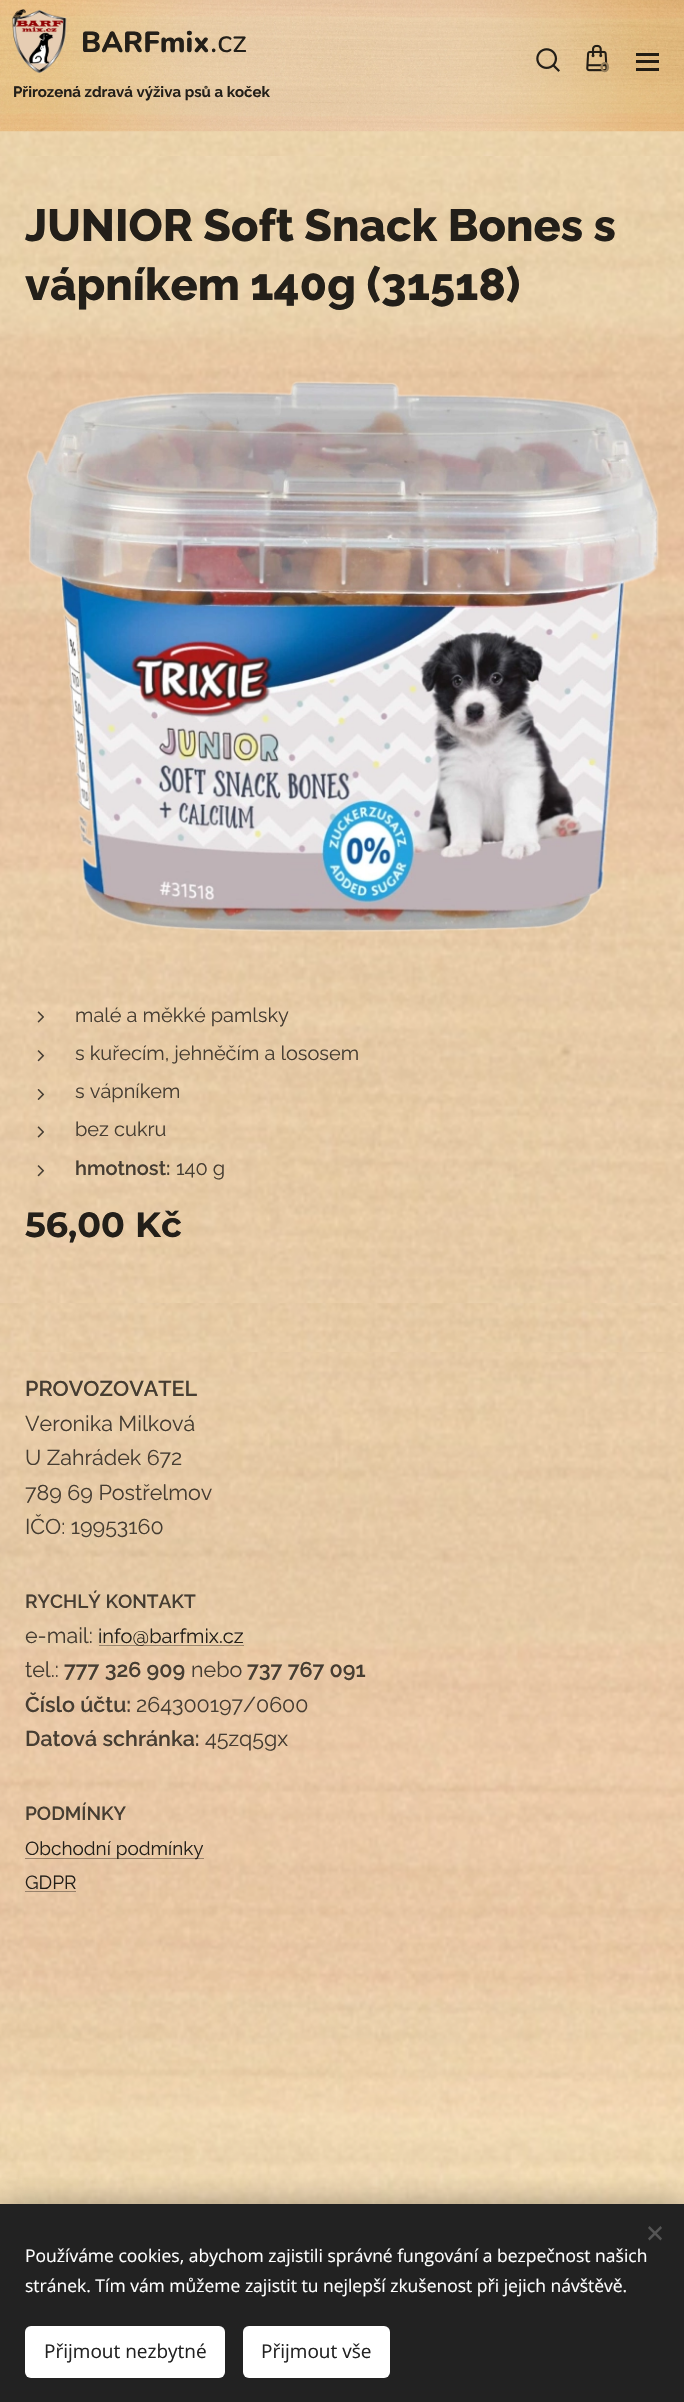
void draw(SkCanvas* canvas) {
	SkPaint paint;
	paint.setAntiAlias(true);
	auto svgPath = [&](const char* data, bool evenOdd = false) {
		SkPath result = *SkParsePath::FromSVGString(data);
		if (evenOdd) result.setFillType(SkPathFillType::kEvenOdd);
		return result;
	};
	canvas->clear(0xffffffff);
	canvas->drawImageRect(SkImages::DeferredFromEncodedData(SkData::MakeFromFileName("img5.png")), SkRect::MakeXYWH(0, 131, 684, 1221), SkSamplingOptions());
	canvas->drawImageRect(SkImages::DeferredFromEncodedData(SkData::MakeFromFileName("img1.png")), SkRect::MakeXYWH(0, 0, 684, 132), SkSamplingOptions());
	canvas->drawImageRect(SkImages::DeferredFromEncodedData(SkData::MakeFromFileName("img2.png")), SkRect::MakeXYWH(12, 9, 55, 65), SkSamplingOptions());
	SkFont f1(fontMgr->matchFamilyStyle("Nunito", SkFontStyle(800, SkFontStyle::kNormal_Width, SkFontStyle::kUpright_Slant)), 29);
	f1.setSubpixel(true);
	paint.setColor(0xff231f19);
	canvas->drawString("BARFmix", 81, 52, f1, paint);
	SkFont f2(fontMgr->matchFamilyStyle("Nunito", SkFontStyle::Normal()), 32);
	f2.setSubpixel(true);
	canvas->drawString(".cz", 210, 52, f2, paint);
	SkFont f3(fontMgr->matchFamilyStyle("Raleway", SkFontStyle::Bold()), 15);
	f3.setSubpixel(true);
	canvas->drawString("Přirozená zdravá výživa psů a koček", 13, 97, f3, paint);
	canvas->drawImageRect(SkImages::DeferredFromEncodedData(SkData::MakeFromFileName("img3.png")), SkRect::MakeXYWH(536, 48, 24, 24), SkSamplingOptions());
	canvas->drawImageRect(SkImages::DeferredFromEncodedData(SkData::MakeFromFileName("img4.png")), SkRect::MakeXYWH(586, 44, 22, 28), SkSamplingOptions());
	SkFont f4(fontMgr->matchFamilyStyle("Montserrat", SkFontStyle::Bold()), 14);
	f4.setSubpixel(true);
	paint.setColor(0xff957e5a);
	canvas->drawString("0", 600, 72, f4, paint);
	paint.setColor(0xd9000000);
	canvas->drawRect(SkRect::MakeXYWH(636, 60, 23, 3), paint);
	canvas->drawRect(SkRect::MakeXYWH(636, 53, 23, 3), paint);
	canvas->drawRect(SkRect::MakeXYWH(636, 68, 23, 3), paint);
	canvas->drawImageRect(SkImages::DeferredFromEncodedData(SkData::MakeFromFileName("img6.png")), SkRect::MakeXYWH(0, 156, 684, 1147), SkSamplingOptions());
	SkFont f5(fontMgr->matchFamilyStyle("Raleway", SkFontStyle(800, SkFontStyle::kNormal_Width, SkFontStyle::kUpright_Slant)), 45);
	f5.setSubpixel(true);
	paint.setColor(0xff231f19);
	canvas->drawString("JUNIOR Soft Snack Bones s", 25, 241, f5, paint);
	canvas->drawString("vápníkem 140g (31518)", 25, 300, f5, paint);
	canvas->drawImageRect(SkImages::DeferredFromEncodedData(SkData::MakeFromFileName("img7.png")), SkRect::MakeXYWH(26, 381, 633, 551), SkSamplingOptions());
	canvas->drawImageRect(SkImages::DeferredFromEncodedData(SkData::MakeFromFileName("img8.png")), SkRect::MakeXYWH(37, 1011, 7, 12), SkSamplingOptions());
	SkFont f6(fontMgr->matchFamilyStyle("Raleway", SkFontStyle::Normal()), 20);
	f6.setSubpixel(true);
	paint.setColor(0xff463d32);
	canvas->drawString("malé a měkké pamlsky", 75, 1022, f6, paint);
	canvas->drawImageRect(SkImages::DeferredFromEncodedData(SkData::MakeFromFileName("img9.png")), SkRect::MakeXYWH(37, 1050, 8, 12), SkSamplingOptions());
	canvas->drawString("s kuřecím, jehněčím a lososem", 75, 1060, f6, paint);
	canvas->drawImageRect(SkImages::DeferredFromEncodedData(SkData::MakeFromFileName("img10.png")), SkRect::MakeXYWH(37, 1089, 8, 11), SkSamplingOptions());
	canvas->drawString("s vápníkem", 75, 1098, f6, paint);
	canvas->drawImageRect(SkImages::DeferredFromEncodedData(SkData::MakeFromFileName("img11.png")), SkRect::MakeXYWH(37, 1126, 7, 12), SkSamplingOptions());
	canvas->drawString("bez cukru", 75, 1136, f6, paint);
	canvas->drawImageRect(SkImages::DeferredFromEncodedData(SkData::MakeFromFileName("img12.png")), SkRect::MakeXYWH(37, 1165, 8, 12), SkSamplingOptions());
	SkFont f7(fontMgr->matchFamilyStyle("Raleway", SkFontStyle(600, SkFontStyle::kNormal_Width, SkFontStyle::kUpright_Slant)), 20);
	f7.setSubpixel(true);
	canvas->drawString("hmotnost:", 75, 1175, f7, paint);
	canvas->drawString("140 g", 176, 1175, f6, paint);
	SkFont f8(fontMgr->matchFamilyStyle("Montserrat", SkFontStyle::Bold()), 35);
	f8.setSubpixel(true);
	paint.setColor(0xff231f19);
	canvas->drawString("56,00", 25, 1237, f8, paint);
	canvas->drawString("Kč", 135, 1237, f8, paint);
	canvas->drawImageRect(SkImages::DeferredFromEncodedData(SkData::MakeFromFileName("img13.png")), SkRect::MakeXYWH(0, 1352, 684, 852), SkSamplingOptions());
	SkFont f9(fontMgr->matchFamilyStyle("Raleway", SkFontStyle(600, SkFontStyle::kNormal_Width, SkFontStyle::kUpright_Slant)), 21.5);
	f9.setSubpixel(true);
	paint.setColor(0xff463d32);
	canvas->drawString("PROVOZOVATEL", 25, 1396, f9, paint);
	SkFont f10(fontMgr->matchFamilyStyle("Raleway", SkFontStyle::Normal()), 21.5);
	f10.setSubpixel(true);
	canvas->drawString("Veronika Milková", 25, 1431, f10, paint);
	canvas->drawString("U Zahrádek 672", 25, 1465, f10, paint);
	canvas->drawString("789 69 Postřelmov", 25, 1500, f10, paint);
	canvas->drawString("IČO: 19953160", 25, 1534, f10, paint);
	SkFont f11(fontMgr->matchFamilyStyle("Raleway", SkFontStyle(600, SkFontStyle::kNormal_Width, SkFontStyle::kUpright_Slant)), 19);
	f11.setSubpixel(true);
	canvas->drawString("RYCHLÝ KONTAKT", 25, 1608, f11, paint);
	canvas->drawString("e-mail:", 25, 1643, f10, paint);
	paint.setColor(0x59000000);
	canvas->drawRect(SkRect::MakeXYWH(99, 1645, 145, 1), paint);
	paint.setColor(0xff231f19);
	canvas->drawString("info@barfmix.cz", 98, 1643, f6, paint);
	paint.setColor(0xff463d32);
	canvas->drawString("tel.:", 25, 1677, f10, paint);
	canvas->drawString("777 326 909", 64, 1677, f9, paint);
	canvas->drawString("nebo", 191, 1677, f10, paint);
	canvas->drawString("737 767 091", 247, 1677, f9, paint);
	canvas->drawString("Číslo účtu:", 25, 1712, f9, paint);
	canvas->drawString("264300197/0600", 136, 1712, f10, paint);
	canvas->drawString("Datová schránka:", 25, 1746, f9, paint);
	canvas->drawString("45zq5gx", 205, 1746, f10, paint);
	canvas->drawString("PODMÍNKY", 25, 1820, f11, paint);
	paint.setColor(0x59000000);
	canvas->drawRect(SkRect::MakeXYWH(25, 1858, 179, 1), paint);
	SkFont f12(fontMgr->matchFamilyStyle("Raleway", SkFontStyle::Normal()), 19);
	f12.setSubpixel(true);
	paint.setColor(0xff231f19);
	canvas->drawString("Obchodní podmínky", 25, 1855, f12, paint);
	canvas->drawString("GDPR", 25, 1889, f12, paint);
	paint.setColor(0x59000000);
	canvas->drawRect(SkRect::MakeXYWH(25, 1891, 51, 1), paint);
	paint.setColor(0x54000000);
	paint.setMaskFilter(SkMaskFilter::MakeBlur(kNormal_SkBlurStyle, 15.5));
	canvas->drawRect(SkRect::MakeXYWH(0, 2204, 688, 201), paint);
	paint.setMaskFilter(nullptr);
	paint.setColor(0xff222222);
	canvas->drawRect(SkRect::MakeXYWH(0, 2204, 684, 198), paint);
	paint.setColor(0xff555555);
	canvas->drawPath(svgPath("M648 2238.5L660.5 2226L662 2228L649.5 2240.5Z"), paint);
	canvas->drawPath(svgPath("M649.5 2226L662 2238.5L660.5 2240.5L648 2228Z"), paint);
	SkFont f13(fontMgr->matchFamilyStyle("Open Sans", SkFontStyle::Normal()), 17.5);
	f13.setSubpixel(true);
	paint.setColor(0xffffffff);
	canvas->drawString("Používáme cookies, abychom zajistili správné fungování a bezpečnost našich", 25, 2262, f13, paint);
	canvas->drawString("stránek. Tím vám můžeme zajistit tu nejlepší zkušenost při jejich návštěvě.", 25, 2292, f13, paint);
	canvas->drawRoundRect(SkRect::MakeXYWH(25, 2326, 200, 52), 6, 6, paint);
	SkFont f14(fontMgr->matchFamilyStyle("Open Sans", SkFontStyle::Normal()), 19);
	f14.setSubpixel(true);
	paint.setColor(0xff222222);
	canvas->drawString("Přijmout nezbytné", 44, 2358, f14, paint);
	paint.setColor(0xffffffff);
	canvas->drawRoundRect(SkRect::MakeXYWH(243, 2326, 147, 52), 6, 6, paint);
	paint.setColor(0xff222222);
	canvas->drawString("Přijmout vše", 261, 2358, f14, paint);
}
